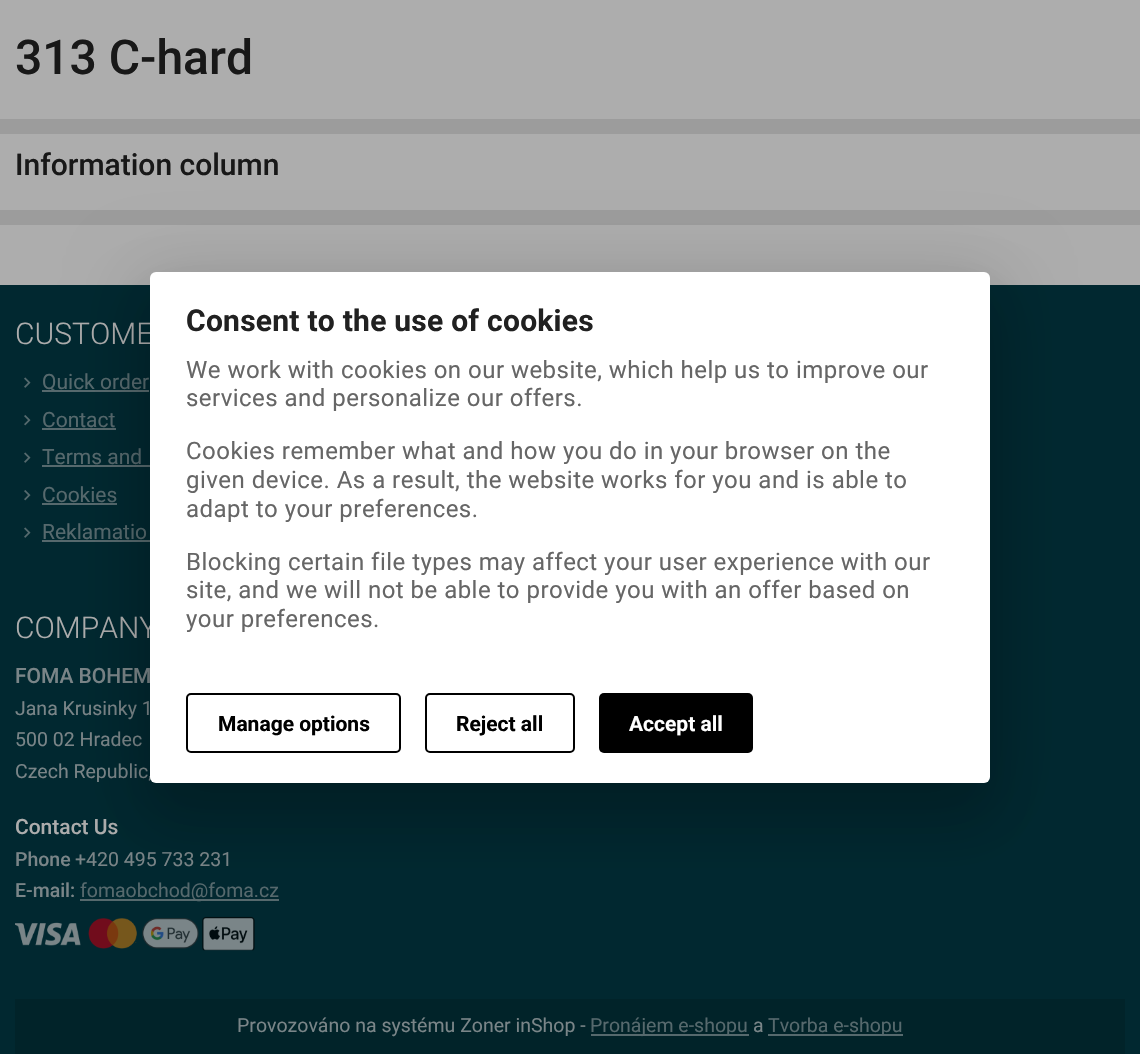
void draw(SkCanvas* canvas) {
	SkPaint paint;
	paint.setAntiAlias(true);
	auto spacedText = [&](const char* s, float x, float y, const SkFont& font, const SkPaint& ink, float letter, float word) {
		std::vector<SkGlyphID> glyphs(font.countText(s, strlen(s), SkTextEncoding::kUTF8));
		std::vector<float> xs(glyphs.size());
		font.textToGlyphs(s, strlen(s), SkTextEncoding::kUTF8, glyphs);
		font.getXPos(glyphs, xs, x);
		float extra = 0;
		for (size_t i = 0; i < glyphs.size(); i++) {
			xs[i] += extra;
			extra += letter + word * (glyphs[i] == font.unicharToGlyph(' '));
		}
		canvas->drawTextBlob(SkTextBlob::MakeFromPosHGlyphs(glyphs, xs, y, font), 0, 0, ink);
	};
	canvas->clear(0xff9c9c9c);
	paint.setColor(0xffadadad);
	canvas->drawRect(SkRect::MakeXYWH(0, 0, 1140, 210), paint);
	SkFont f1(fontMgr->matchFamilyStyle("Roboto", SkFontStyle(500, SkFontStyle::kNormal_Width, SkFontStyle::kUpright_Slant)), 48);
	f1.setSubpixel(true);
	paint.setColor(0xff181818);
	canvas->drawString("313 C-hard", 15, 74, f1, paint);
	paint.setColor(0xff9c9c9c);
	canvas->drawRect(SkRect::MakeXYWH(0, 119, 1140, 15), paint);
	SkFont f2(fontMgr->matchFamilyStyle("Roboto", SkFontStyle(500, SkFontStyle::kNormal_Width, SkFontStyle::kUpright_Slant)), 30);
	f2.setSubpixel(true);
	paint.setColor(0xff181818);
	canvas->drawString("Information column", 15, 175, f2, paint);
	paint.setColor(0xffadadad);
	canvas->drawRect(SkRect::MakeXYWH(0, 225, 1140, 60), paint);
	paint.setColor(0xff012830);
	canvas->drawRect(SkRect::MakeXYWH(0, 285, 1140, 769), paint);
	SkFont f3(fontMgr->matchFamilyStyle("Roboto", SkFontStyle(300, SkFontStyle::kNormal_Width, SkFontStyle::kUpright_Slant)), 30);
	f3.setSubpixel(true);
	paint.setColor(0xffadadad);
	canvas->drawString("CUSTOME", 15, 344, f3, paint);
	canvas->drawImageRect(SkImages::DeferredFromEncodedData(SkData::MakeFromFileName("img1.png")), SkRect::MakeXYWH(24, 377, 7, 11), SkSamplingOptions());
	paint.setColor(0xff56696d);
	canvas->drawRect(SkRect::MakeXYWH(42, 390, 107, 2), paint);
	SkFont f4(fontMgr->matchFamilyStyle("Roboto", SkFontStyle::Normal()), 21);
	f4.setSubpixel(true);
	canvas->drawString("Quick order", 42, 389, f4, paint);
	canvas->drawImageRect(SkImages::DeferredFromEncodedData(SkData::MakeFromFileName("img2.png")), SkRect::MakeXYWH(24, 415, 7, 11), SkSamplingOptions());
	canvas->drawString("Contact", 42, 427, f4, paint);
	canvas->drawRect(SkRect::MakeXYWH(42, 428, 74, 2), paint);
	canvas->drawImageRect(SkImages::DeferredFromEncodedData(SkData::MakeFromFileName("img1.png")), SkRect::MakeXYWH(24, 452, 7, 11), SkSamplingOptions());
	canvas->drawString("Terms and", 42, 464, f4, paint);
	canvas->drawRect(SkRect::MakeXYWH(42, 465, 108, 2), paint);
	canvas->drawImageRect(SkImages::DeferredFromEncodedData(SkData::MakeFromFileName("img2.png")), SkRect::MakeXYWH(24, 490, 7, 11), SkSamplingOptions());
	canvas->drawString("Cookies", 42, 502, f4, paint);
	canvas->drawRect(SkRect::MakeXYWH(42, 503, 75, 2), paint);
	canvas->drawImageRect(SkImages::DeferredFromEncodedData(SkData::MakeFromFileName("img1.png")), SkRect::MakeXYWH(24, 527, 7, 11), SkSamplingOptions());
	canvas->drawString("Reklamatio", 42, 539, f4, paint);
	canvas->drawRect(SkRect::MakeXYWH(42, 540, 108, 2), paint);
	paint.setColor(0xffadadad);
	canvas->drawString("COMPANY", 15, 638, f3, paint);
	SkFont f5(fontMgr->matchFamilyStyle("Roboto", SkFontStyle(500, SkFontStyle::kNormal_Width, SkFontStyle::kUpright_Slant)), 21);
	f5.setSubpixel(true);
	paint.setColor(0xff7a8588);
	canvas->drawString("FOMA BOHEM", 15, 683, f5, paint);
	SkFont f6(fontMgr->matchFamilyStyle("Roboto", SkFontStyle::Normal()), 19.5);
	f6.setSubpixel(true);
	canvas->drawString("Jana Krusinky 1", 15, 715, f6, paint);
	canvas->drawString("500 02 Hradec", 15, 746, f6, paint);
	canvas->drawString("Czech Republic,", 15, 778, f6, paint);
	paint.setColor(0xffadadad);
	canvas->drawString("Contact Us", 15, 834, f5, paint);
	SkFont f7(fontMgr->matchFamilyStyle("Roboto", SkFontStyle(500, SkFontStyle::kNormal_Width, SkFontStyle::kUpright_Slant)), 19.5);
	f7.setSubpixel(true);
	paint.setColor(0xff7a8588);
	canvas->drawString("Phone", 15, 866, f7, paint);
	canvas->drawString("+420 495 733 231", 75, 866, f6, paint);
	canvas->drawString("E-mail:", 15, 897, f7, paint);
	paint.setColor(0xff56696d);
	canvas->drawRect(SkRect::MakeXYWH(80, 899, 199, 2), paint);
	canvas->drawString("fomaobchod@foma.cz", 80, 897, f6, paint);
	canvas->drawImageRect(SkImages::DeferredFromEncodedData(SkData::MakeFromFileName("img3.png")), SkRect::MakeXYWH(15, 916, 240, 35), SkSamplingOptions());
	paint.setColor(0xff012329);
	canvas->drawRect(SkRect::MakeXYWH(15, 999, 1110, 55), paint);
	paint.setColor(0xff7a8588);
	canvas->drawString("Provozováno na systému Zoner inShop -", 237, 1032, f6, paint);
	paint.setColor(0xff56696d);
	canvas->drawRect(SkRect::MakeXYWH(591, 1034, 158, 2), paint);
	canvas->drawString("Pronájem e-shopu", 590, 1032, f6, paint);
	paint.setColor(0xff7a8588);
	canvas->drawString("a", 753, 1032, f6, paint);
	paint.setColor(0xff56696d);
	canvas->drawRect(SkRect::MakeXYWH(768, 1034, 135, 2), paint);
	canvas->drawString("Tvorba e-shopu", 768, 1032, f6, paint);
	paint.setColor(0x1f000000);
	paint.setMaskFilter(SkMaskFilter::MakeBlur(kNormal_SkBlurStyle, 34.5));
	canvas->drawRoundRect(SkRect::MakeXYWH(138, 273, 864, 536), 18, 18, paint);
	paint.setMaskFilter(nullptr);
	paint.setColor(0x24000000);
	paint.setMaskFilter(SkMaskFilter::MakeBlur(kNormal_SkBlurStyle, 28.5));
	canvas->drawRoundRect(SkRect::MakeXYWH(146, 303, 849, 521), 11, 11, paint);
	paint.setMaskFilter(nullptr);
	paint.setColor(0xffffffff);
	canvas->drawRoundRect(SkRect::MakeXYWH(150, 272, 840, 511), 6, 6, paint);
	SkFont f8(fontMgr->matchFamilyStyle("Roboto", SkFontStyle::Bold()), 30);
	f8.setSubpixel(true);
	paint.setColor(0xff212121);
	spacedText("Consent to the use of cookies", 186, 331, f8, paint, 0.25, 0);
	SkFont f9(fontMgr->matchFamilyStyle("Roboto", SkFontStyle::Normal()), 24);
	f9.setSubpixel(true);
	paint.setColor(0xff666666);
	spacedText("We work with cookies on our website, which help us to improve our", 186, 378, f9, paint, 0.47, 0);
	spacedText("services and personalize our offers.", 186, 406, f9, paint, 0.47, 0);
	spacedText("Cookies remember what and how you do in your browser on the", 186, 459, f9, paint, 0.47, 0);
	spacedText("given device. As a result, the website works for you and is able to", 186, 488, f9, paint, 0.47, 0);
	spacedText("adapt to your preferences.", 186, 517, f9, paint, 0.47, 0);
	spacedText("Blocking certain file types may affect your user experience with our", 186, 570, f9, paint, 0.47, 0);
	spacedText("site, and we will not be able to provide you with an offer based on", 186, 598, f9, paint, 0.47, 0);
	spacedText("your preferences.", 186, 627, f9, paint, 0.47, 0);
	paint.setStroke(true);
	paint.setStrokeWidth(2);
	paint.setColor(0xff000000);
	canvas->drawRoundRect(SkRect::MakeXYWH(187, 694, 213, 58), 4, 4, paint);
	SkFont f10(fontMgr->matchFamilyStyle("Roboto", SkFontStyle::Bold()), 21);
	f10.setSubpixel(true);
	paint.setStroke(false);
	canvas->drawString("Manage options", 218, 731, f10, paint);
	paint.setStroke(true);
	canvas->drawRoundRect(SkRect::MakeXYWH(426, 694, 148, 58), 4, 4, paint);
	paint.setStroke(false);
	canvas->drawString("Reject all", 456, 731, f10, paint);
	canvas->drawRoundRect(SkRect::MakeXYWH(599, 693, 154, 60), 5, 5, paint);
	paint.setColor(0xffffffff);
	canvas->drawString("Accept all", 629, 731, f10, paint);
}
